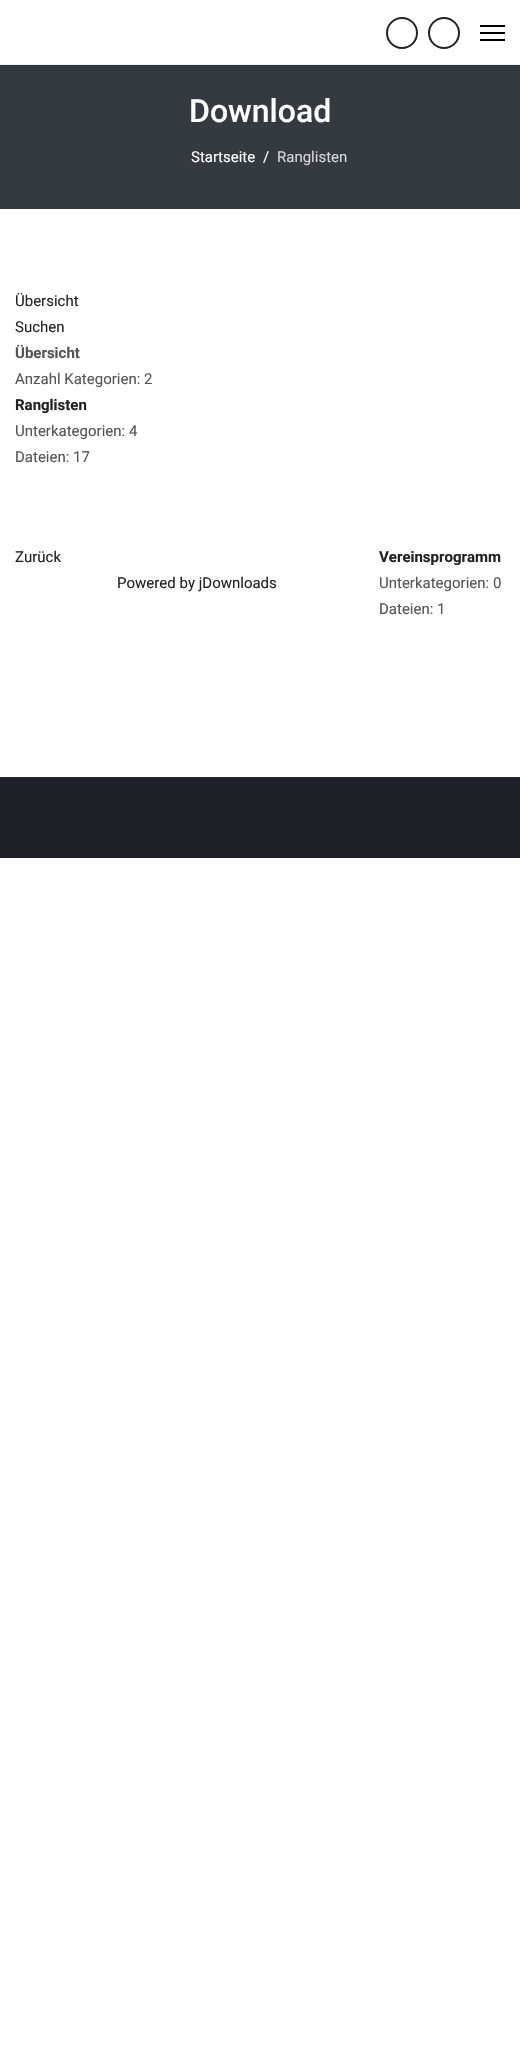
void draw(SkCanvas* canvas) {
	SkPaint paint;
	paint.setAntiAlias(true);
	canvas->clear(0xffffffff);
	paint.setColor(0xfff2f2f2);
	canvas->drawRect(SkRect::MakeXYWH(0, 64, 520, 1), paint);
	paint.setStroke(true);
	paint.setStrokeWidth(2);
	paint.setColor(0xff222222);
	canvas->drawCircle(402, 33, 15, paint);
	canvas->drawCircle(444, 33, 15, paint);
	paint.setStroke(false);
	paint.setColor(0xff000000);
	canvas->drawRect(SkRect::MakeXYWH(480, 25, 25, 2), paint);
	canvas->drawRect(SkRect::MakeXYWH(480, 32, 25, 2), paint);
	canvas->drawRect(SkRect::MakeXYWH(480, 39, 25, 2), paint);
	paint.setColor(0xff343a40);
	canvas->drawRect(SkRect::MakeXYWH(0, 65, 520, 144), paint);
	SkFont f1(fontMgr->matchFamilyStyle("Roboto", SkFontStyle(500, SkFontStyle::kNormal_Width, SkFontStyle::kUpright_Slant)), 32);
	f1.setSubpixel(true);
	paint.setColor(0xffffffff);
	canvas->drawString("Download", 189, 122, f1, paint);
	SkFont f2(fontMgr->matchFamilyStyle("Roboto", SkFontStyle::Normal()), 15);
	f2.setSubpixel(true);
	canvas->drawString("Startseite", 191, 162, f2, paint);
	canvas->drawString("/", 263, 162, f2, paint);
	paint.setColor(0xffd6d8d9);
	canvas->drawString("Ranglisten", 277, 162, f2, paint);
	paint.setColor(0xff222222);
	canvas->drawString("Übersicht", 15, 306, f2, paint);
	canvas->drawString("Suchen", 15, 332, f2, paint);
	SkFont f3(fontMgr->matchFamilyStyle("Roboto", SkFontStyle::Bold()), 15);
	f3.setSubpixel(true);
	paint.setColor(0xff545454);
	canvas->drawString("Übersicht", 15, 358, f3, paint);
	canvas->drawString("Anzahl Kategorien: 2", 15, 384, f2, paint);
	paint.setColor(0xff222222);
	canvas->drawString("Ranglisten", 15, 410, f3, paint);
	paint.setColor(0xff545454);
	canvas->drawString("Unterkategorien: 4", 15, 436, f2, paint);
	canvas->drawString("Dateien: 17", 15, 462, f2, paint);
	paint.setColor(0xff222222);
	canvas->drawString("Vereinsprogramm", 379, 562, f3, paint);
	paint.setColor(0xff545454);
	canvas->drawString("Unterkategorien: 0", 379, 588, f2, paint);
	canvas->drawString("Dateien: 1", 379, 614, f2, paint);
	paint.setColor(0xff222222);
	canvas->drawString("Zurück", 15, 562, f2, paint);
	canvas->drawString("Powered by jDownloads", 117, 588, f2, paint);
	paint.setColor(0xff1d2026);
	canvas->drawRect(SkRect::MakeXYWH(0, 778, 520, 80), paint);
	paint.setColor(0xff292c32);
	canvas->drawRect(SkRect::MakeXYWH(0, 777, 520, 1), paint);
}
